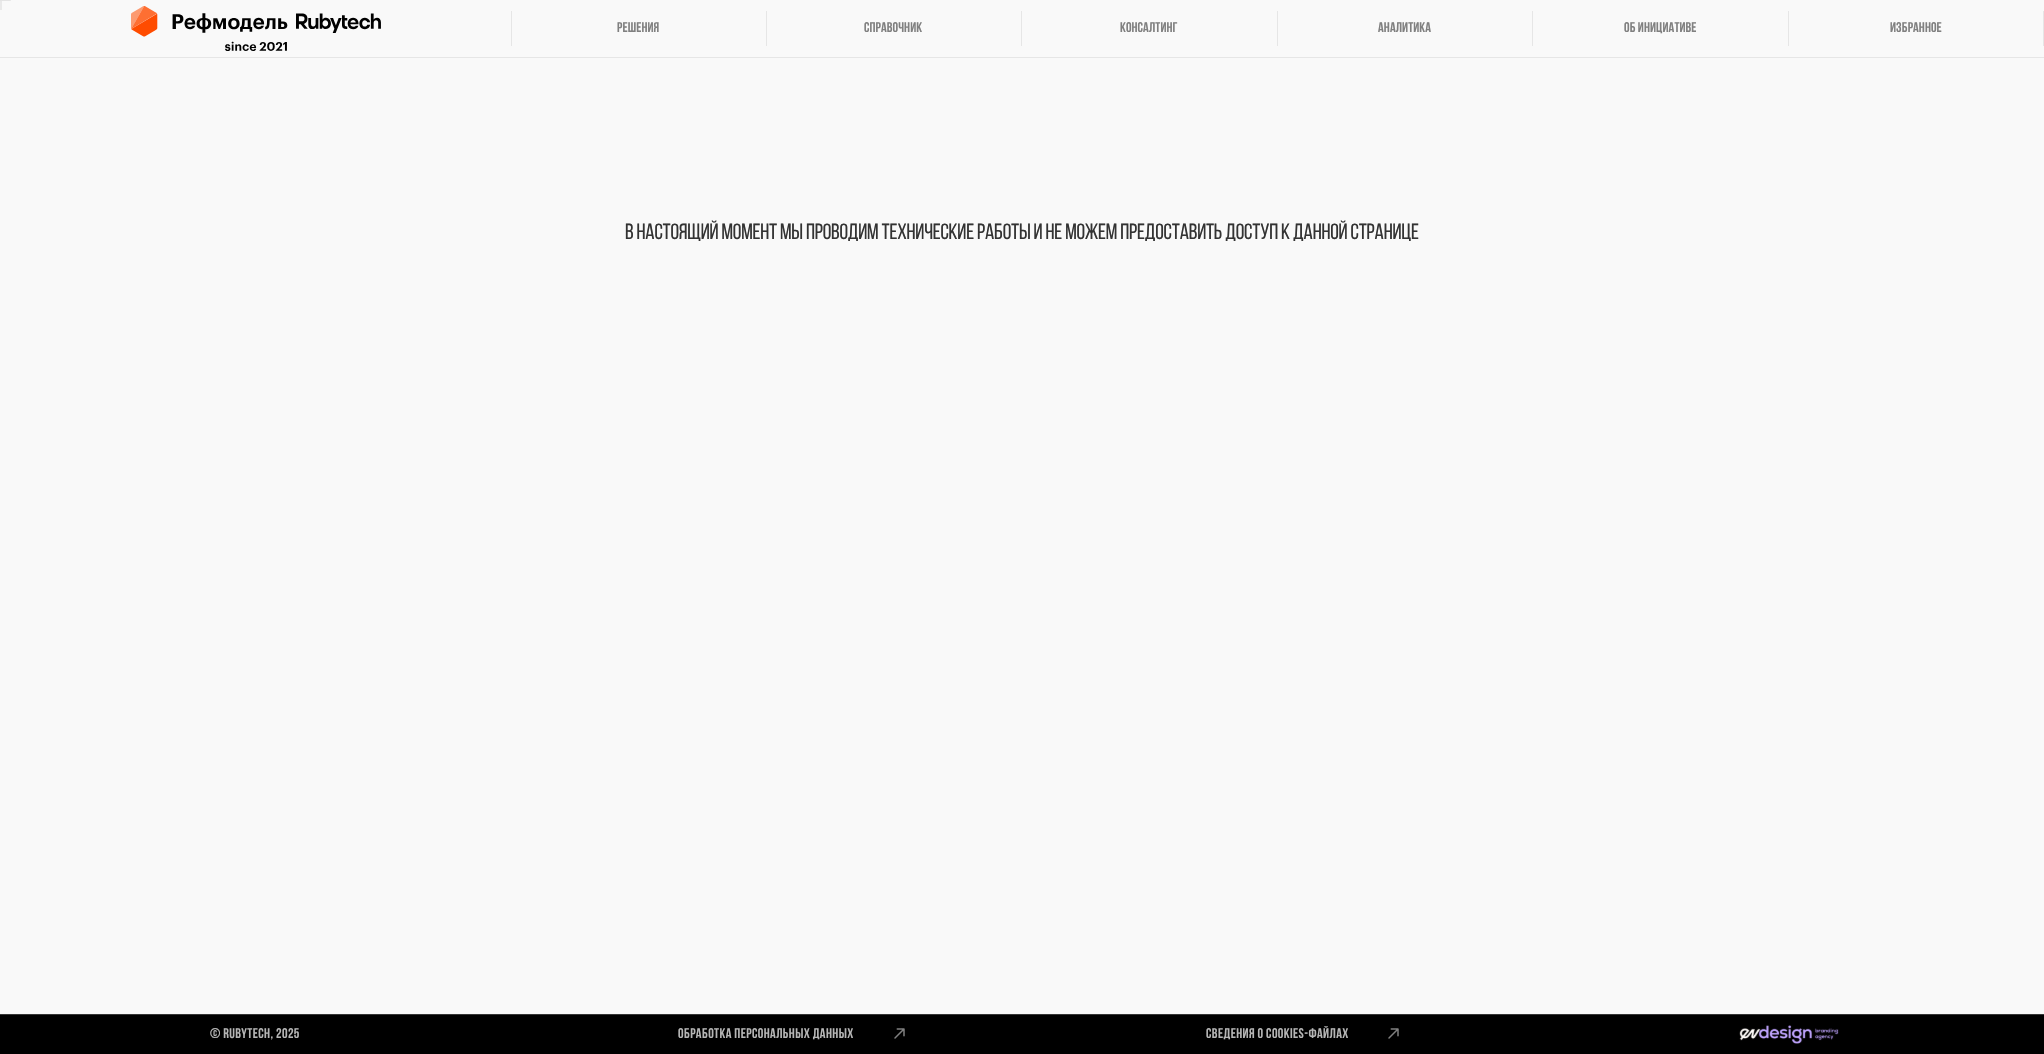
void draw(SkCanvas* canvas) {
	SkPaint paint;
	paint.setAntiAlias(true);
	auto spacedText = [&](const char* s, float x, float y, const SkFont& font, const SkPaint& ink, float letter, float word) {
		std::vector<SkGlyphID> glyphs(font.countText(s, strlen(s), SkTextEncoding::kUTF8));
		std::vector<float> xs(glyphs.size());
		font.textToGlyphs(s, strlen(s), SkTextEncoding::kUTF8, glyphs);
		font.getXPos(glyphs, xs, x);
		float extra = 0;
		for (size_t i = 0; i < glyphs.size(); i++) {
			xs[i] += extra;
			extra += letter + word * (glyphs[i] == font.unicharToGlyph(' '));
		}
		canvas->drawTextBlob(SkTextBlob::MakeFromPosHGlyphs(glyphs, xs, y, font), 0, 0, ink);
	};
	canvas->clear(0xfff9f9f9);
	paint.setColor(0xffe3e3e3);
	canvas->drawRect(SkRect::MakeXYWH(0, 0, 2, 1), paint);
	canvas->drawImageRect(SkImages::DeferredFromEncodedData(SkData::MakeFromFileName("img2.png")), SkRect::MakeXYWH(10, 0, 1, 1), SkSamplingOptions());
	paint.setColor(0xffeeeeee);
	canvas->drawRect(SkRect::MakeXYWH(0, 1, 2, 9), paint);
	canvas->drawImageRect(SkImages::DeferredFromEncodedData(SkData::MakeFromFileName("img1.png")), SkRect::MakeXYWH(0, 0, 11, 10), SkSamplingOptions());
	paint.setColor(0xffe6e6e6);
	canvas->drawRect(SkRect::MakeXYWH(0, 57, 2044, 1), paint);
	canvas->drawImageRect(SkImages::DeferredFromEncodedData(SkData::MakeFromFileName("img3.png")), SkRect::MakeXYWH(131, 6, 250, 45), SkSamplingOptions());
	canvas->drawRect(SkRect::MakeXYWH(766, 11, 1, 35), paint);
	canvas->drawRect(SkRect::MakeXYWH(511, 11, 1, 35), paint);
	SkFont f1(fontMgr->matchFamilyStyle("Bebas Neue", SkFontStyle::Bold()), 14);
	f1.setSubpixel(true);
	paint.setColor(0xff808080);
	spacedText("Решения", 617, 32, f1, paint, 0.1, 0);
	paint.setColor(0xffe6e6e6);
	canvas->drawRect(SkRect::MakeXYWH(1021, 11, 1, 35), paint);
	paint.setColor(0xff808080);
	spacedText("Справочник", 864, 32, f1, paint, 0.1, 0);
	paint.setColor(0xffe6e6e6);
	canvas->drawRect(SkRect::MakeXYWH(1277, 11, 1, 35), paint);
	paint.setColor(0xff808080);
	spacedText("Консалтинг", 1120, 32, f1, paint, 0.1, 0);
	paint.setColor(0xffe6e6e6);
	canvas->drawRect(SkRect::MakeXYWH(1532, 11, 1, 35), paint);
	paint.setColor(0xff808080);
	spacedText("Аналитика", 1378, 32, f1, paint, 0.1, 0);
	paint.setColor(0xffe6e6e6);
	canvas->drawRect(SkRect::MakeXYWH(1788, 11, 1, 35), paint);
	paint.setColor(0xff808080);
	spacedText("Об инициативе", 1624, 32, f1, paint, 0.1, 0);
	paint.setColor(0xffe6e6e6);
	canvas->drawRect(SkRect::MakeXYWH(2043, 11, 1, 35), paint);
	paint.setColor(0xff808080);
	spacedText("Избранное", 1890, 32, f1, paint, 0.1, 0);
	SkFont f2(fontMgr->matchFamilyStyle("Bebas Neue", SkFontStyle::Normal()), 22);
	f2.setSubpixel(true);
	paint.setColor(0xff333333);
	spacedText("В настоящий момент мы проводим технические работы и не можем предоставить доступ к данной странице", 625, 239, f2, paint, -0.22, 0);
	paint.setColor(0xff000000);
	canvas->drawRect(SkRect::MakeXYWH(0, 1015, 2044, 39), paint);
	paint.setColor(0xff363636);
	canvas->drawRect(SkRect::MakeXYWH(0, 1014, 2044, 1), paint);
	paint.setColor(0xffb6b6b6);
	spacedText("© Rubytech, 2025", 210, 1038, f1, paint, 0.4, 0);
	spacedText("Обработка персональных данных", 678, 1038, f1, paint, 0.4, 0);
	canvas->drawImageRect(SkImages::DeferredFromEncodedData(SkData::MakeFromFileName("img4.png")), SkRect::MakeXYWH(894, 1028, 11, 11), SkSamplingOptions());
	spacedText("Сведения о cookies-файлах", 1206, 1038, f1, paint, 0.4, 0);
	canvas->drawImageRect(SkImages::DeferredFromEncodedData(SkData::MakeFromFileName("img4.png")), SkRect::MakeXYWH(1388, 1028, 11, 11), SkSamplingOptions());
	canvas->drawImageRect(SkImages::DeferredFromEncodedData(SkData::MakeFromFileName("img5.png")), SkRect::MakeXYWH(1739, 1025, 100, 19), SkSamplingOptions());
}
